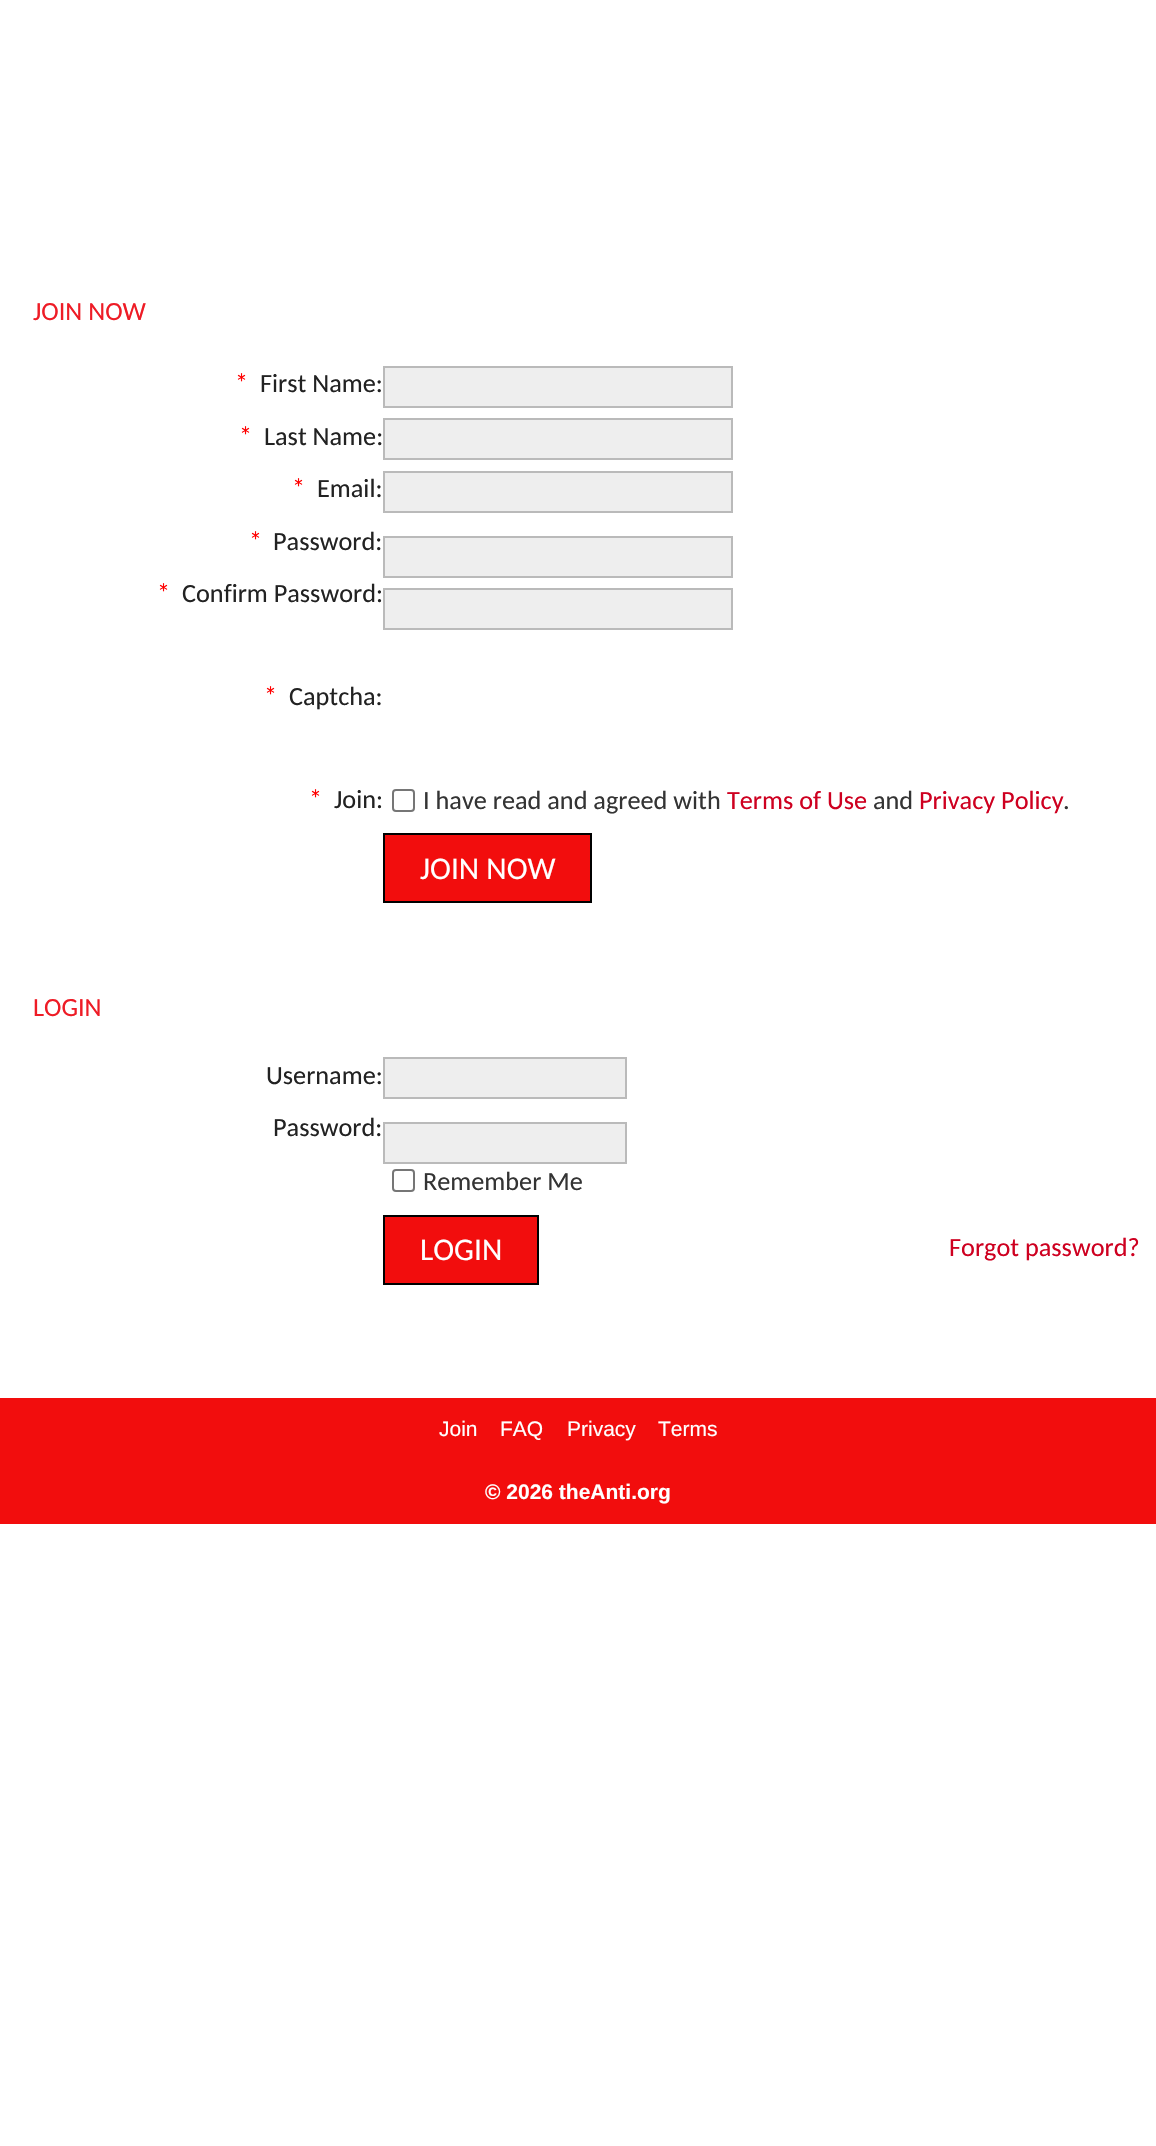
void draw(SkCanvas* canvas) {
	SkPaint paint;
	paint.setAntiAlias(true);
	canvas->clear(0xffffffff);
	SkFont f1(fontMgr->matchFamilyStyle("Carlito", SkFontStyle::Normal()), 26.25);
	f1.setSubpixel(true);
	paint.setColor(0xffee1c26);
	canvas->drawString("JOIN NOW", 33, 320, f1, paint);
	paint.setColor(0xffff0000);
	canvas->drawString("*", 235, 392, f1, paint);
	paint.setColor(0xff222222);
	canvas->drawString("First Name:", 260, 392, f1, paint);
	paint.setColor(0xffeeeeee);
	canvas->drawRect(SkRect::MakeXYWH(384, 367, 348, 40), paint);
	paint.setStroke(true);
	paint.setStrokeWidth(2);
	paint.setColor(0xffbababa);
	canvas->drawRect(SkRect::MakeXYWH(384, 367, 348, 40), paint);
	paint.setStroke(false);
	paint.setColor(0xffff0000);
	canvas->drawString("*", 239, 445, f1, paint);
	paint.setColor(0xff222222);
	canvas->drawString("Last Name:", 264, 445, f1, paint);
	paint.setColor(0xffeeeeee);
	canvas->drawRect(SkRect::MakeXYWH(384, 419, 348, 40), paint);
	paint.setStroke(true);
	paint.setColor(0xffbababa);
	canvas->drawRect(SkRect::MakeXYWH(384, 419, 348, 40), paint);
	paint.setStroke(false);
	paint.setColor(0xffff0000);
	canvas->drawString("*", 292, 497, f1, paint);
	paint.setColor(0xff222222);
	canvas->drawString("Email:", 317, 497, f1, paint);
	paint.setColor(0xffeeeeee);
	canvas->drawRect(SkRect::MakeXYWH(384, 472, 348, 40), paint);
	paint.setStroke(true);
	paint.setColor(0xffbababa);
	canvas->drawRect(SkRect::MakeXYWH(384, 472, 348, 40), paint);
	paint.setStroke(false);
	paint.setColor(0xffff0000);
	canvas->drawString("*", 249, 550, f1, paint);
	paint.setColor(0xff222222);
	canvas->drawString("Password:", 273, 550, f1, paint);
	paint.setColor(0xffeeeeee);
	canvas->drawRect(SkRect::MakeXYWH(384, 537, 348, 40), paint);
	paint.setStroke(true);
	paint.setColor(0xffbababa);
	canvas->drawRect(SkRect::MakeXYWH(384, 537, 348, 40), paint);
	paint.setStroke(false);
	paint.setColor(0xffff0000);
	canvas->drawString("*", 157, 602, f1, paint);
	paint.setColor(0xff222222);
	canvas->drawString("Confirm Password:", 182, 602, f1, paint);
	paint.setColor(0xffeeeeee);
	canvas->drawRect(SkRect::MakeXYWH(384, 589, 348, 40), paint);
	paint.setStroke(true);
	paint.setColor(0xffbababa);
	canvas->drawRect(SkRect::MakeXYWH(384, 589, 348, 40), paint);
	paint.setStroke(false);
	paint.setColor(0xffff0000);
	canvas->drawString("*", 264, 705, f1, paint);
	paint.setColor(0xff222222);
	canvas->drawString("Captcha:", 289, 705, f1, paint);
	paint.setColor(0xffff0000);
	canvas->drawString("*", 309, 808, f1, paint);
	paint.setColor(0xff222222);
	canvas->drawString("Join:", 334, 808, f1, paint);
	paint.setStroke(true);
	paint.setColor(0xff767676);
	canvas->drawRoundRect(SkRect::MakeXYWH(393, 790, 21, 21), 3, 3, paint);
	paint.setStroke(false);
	paint.setColor(0xff343434);
	canvas->drawString("I have read and agreed with", 423, 809, f1, paint);
	paint.setColor(0xffce0020);
	canvas->drawString("Terms of Use", 727, 809, f1, paint);
	paint.setColor(0xff343434);
	canvas->drawString("and", 873, 809, f1, paint);
	paint.setColor(0xffce0020);
	canvas->drawString("Privacy Policy", 919, 809, f1, paint);
	paint.setColor(0xff343434);
	canvas->drawString(".", 1063, 809, f1, paint);
	paint.setColor(0xfff20d0d);
	canvas->drawRect(SkRect::MakeXYWH(384, 834, 207, 68), paint);
	paint.setStroke(true);
	paint.setColor(0xff000000);
	canvas->drawRect(SkRect::MakeXYWH(384, 834, 207, 68), paint);
	SkFont f2(fontMgr->matchFamilyStyle("Carlito", SkFontStyle::Normal()), 31.5);
	f2.setSubpixel(true);
	paint.setStroke(false);
	paint.setColor(0xffffffff);
	canvas->drawString("JOIN NOW", 420, 879, f2, paint);
	paint.setColor(0xffee1c26);
	canvas->drawString("LOGIN", 33, 1016, f1, paint);
	paint.setColor(0xff222222);
	canvas->drawString("Username:", 266, 1084, f1, paint);
	paint.setColor(0xffeeeeee);
	canvas->drawRect(SkRect::MakeXYWH(384, 1058, 242, 40), paint);
	paint.setStroke(true);
	paint.setColor(0xffbababa);
	canvas->drawRect(SkRect::MakeXYWH(384, 1058, 242, 40), paint);
	paint.setStroke(false);
	paint.setColor(0xff222222);
	canvas->drawString("Password:", 273, 1136, f1, paint);
	paint.setColor(0xffeeeeee);
	canvas->drawRect(SkRect::MakeXYWH(384, 1123, 242, 40), paint);
	paint.setStroke(true);
	paint.setColor(0xffbababa);
	canvas->drawRect(SkRect::MakeXYWH(384, 1123, 242, 40), paint);
	paint.setColor(0xff767676);
	canvas->drawRoundRect(SkRect::MakeXYWH(393, 1170, 21, 21), 3, 3, paint);
	paint.setStroke(false);
	paint.setColor(0xff343434);
	canvas->drawString("Remember Me", 423, 1190, f1, paint);
	paint.setColor(0xfff20d0d);
	canvas->drawRect(SkRect::MakeXYWH(384, 1216, 154, 68), paint);
	paint.setStroke(true);
	paint.setColor(0xff000000);
	canvas->drawRect(SkRect::MakeXYWH(384, 1216, 154, 68), paint);
	paint.setStroke(false);
	paint.setColor(0xffffffff);
	canvas->drawString("LOGIN", 420, 1260, f2, paint);
	paint.setColor(0xffce0020);
	canvas->drawString("Forgot password?", 949, 1256, f1, paint);
	paint.setColor(0xfff20d0d);
	canvas->drawRect(SkRect::MakeXYWH(0, 1398, 1156, 126), paint);
	SkFont f3(fontMgr->matchFamilyStyle("Liberation Sans", SkFontStyle::Normal()), 21);
	f3.setSubpixel(true);
	paint.setColor(0xffffffff);
	canvas->drawString("Join", 439, 1436, f3, paint);
	canvas->drawString("FAQ", 500, 1436, f3, paint);
	canvas->drawString("Privacy", 567, 1436, f3, paint);
	canvas->drawString("Terms", 658, 1436, f3, paint);
	SkFont f4(fontMgr->matchFamilyStyle("Liberation Sans", SkFontStyle::Bold()), 21);
	f4.setSubpixel(true);
	canvas->drawString("© 2026 theAnti.org", 485, 1499, f4, paint);
}
